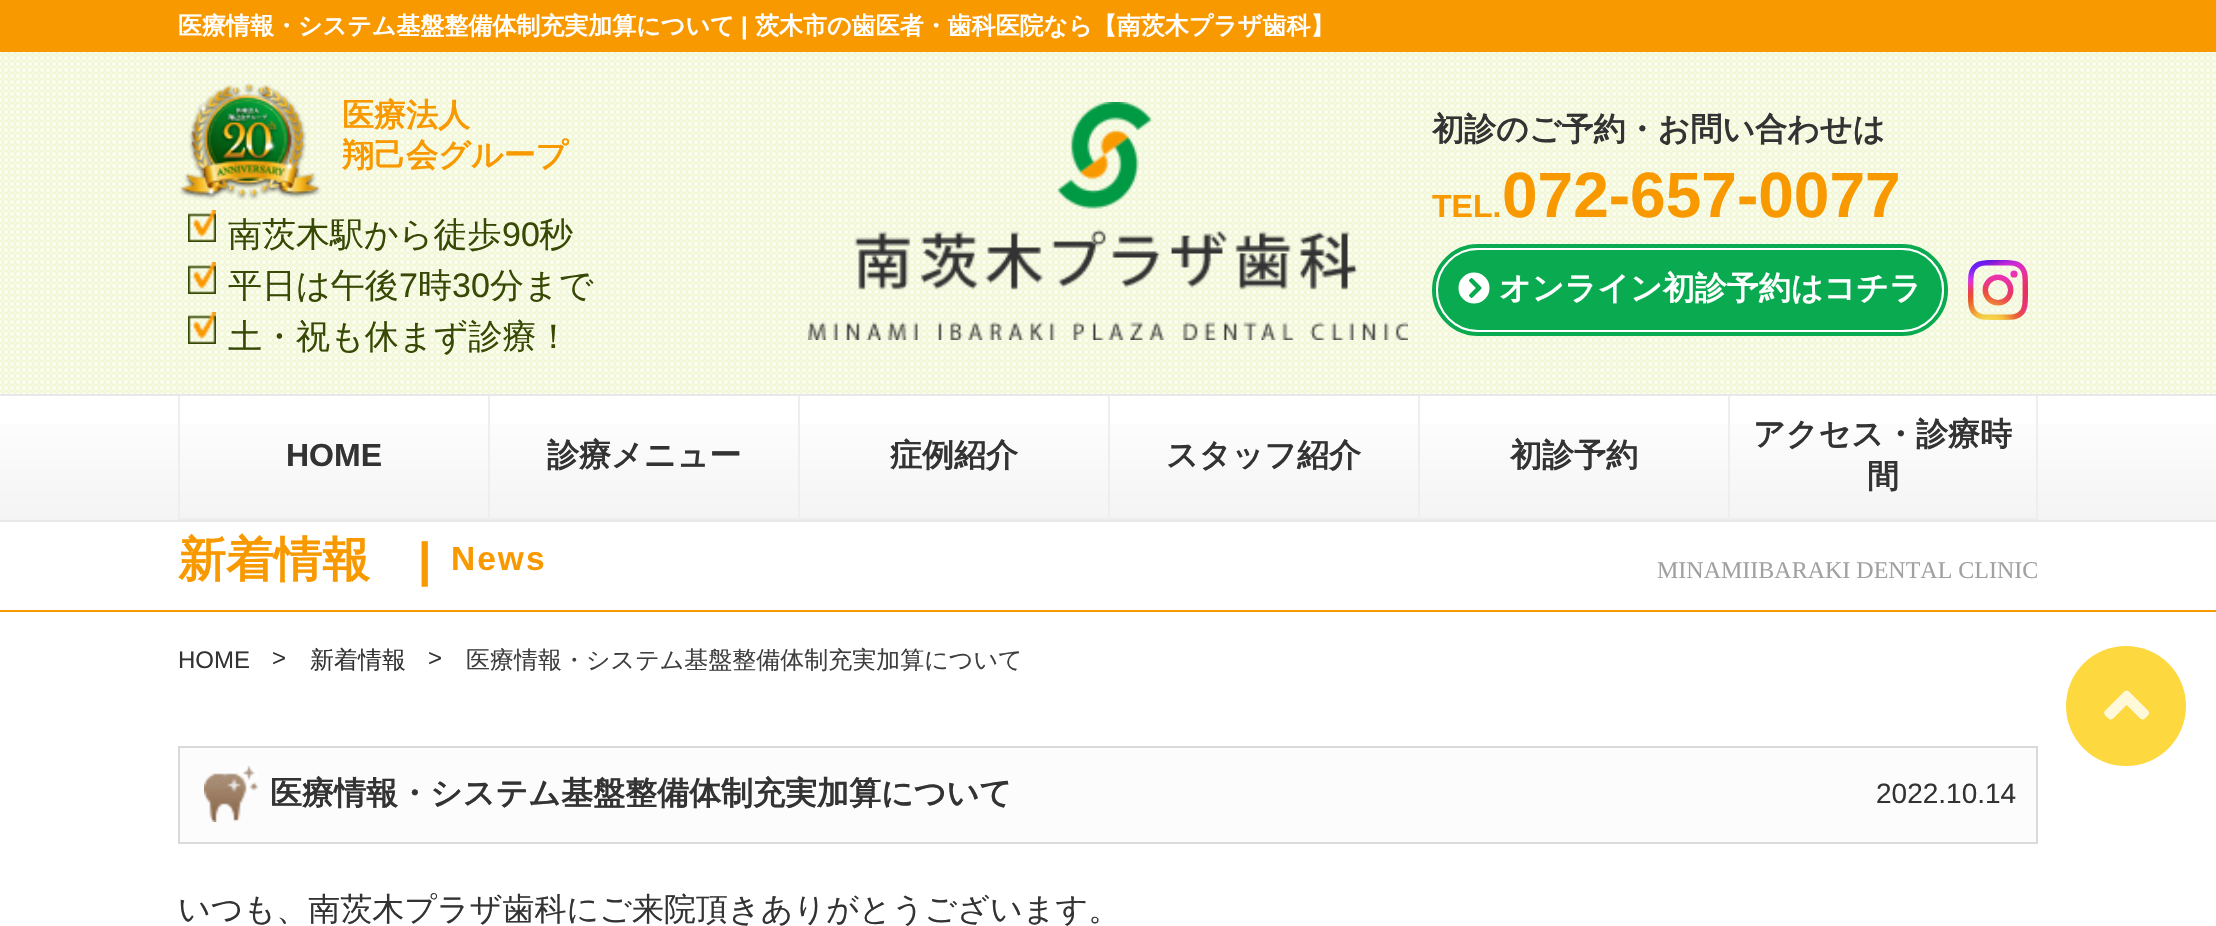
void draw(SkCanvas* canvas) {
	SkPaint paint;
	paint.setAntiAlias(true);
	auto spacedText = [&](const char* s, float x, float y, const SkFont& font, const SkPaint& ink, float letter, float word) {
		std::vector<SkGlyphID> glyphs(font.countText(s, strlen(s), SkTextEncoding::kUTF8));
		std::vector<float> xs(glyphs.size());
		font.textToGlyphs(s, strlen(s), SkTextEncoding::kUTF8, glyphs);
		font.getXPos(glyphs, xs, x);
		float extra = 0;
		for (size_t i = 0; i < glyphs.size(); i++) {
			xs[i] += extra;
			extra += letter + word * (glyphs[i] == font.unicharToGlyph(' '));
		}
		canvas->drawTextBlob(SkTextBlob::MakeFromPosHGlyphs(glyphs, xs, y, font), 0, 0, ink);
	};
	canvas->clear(0xffffffff);
	canvas->drawImageRect(SkImages::DeferredFromEncodedData(SkData::MakeFromFileName("img1.png")), SkRect::MakeXYWH(0, 52, 2216, 342), SkSamplingOptions());
	paint.setColor(0xfff99900);
	canvas->drawRect(SkRect::MakeXYWH(0, 0, 2216, 52), paint);
	SkFont f1(fontMgr->matchFamilyStyle("WenQuanYi Zen Hei", SkFontStyle::Bold()), 24);
	f1.setSubpixel(true);
	paint.setColor(0xffffffff);
	canvas->drawString("医療情報・システム基盤整備体制充実加算について", 178, 34, f1, paint);
	SkFont f2(fontMgr->matchFamilyStyle("Liberation Sans", SkFontStyle::Bold()), 24);
	f2.setSubpixel(true);
	canvas->drawString("|", 741, 34, f2, paint);
	canvas->drawString("茨木市の歯医者・歯科医院なら【南茨木プラザ歯科】", 755, 34, f1, paint);
	canvas->drawImageRect(SkImages::DeferredFromEncodedData(SkData::MakeFromFileName("img2.png")), SkRect::MakeXYWH(179, 83, 142, 117), SkSamplingOptions());
	SkFont f3(fontMgr->matchFamilyStyle("WenQuanYi Zen Hei", SkFontStyle::Bold()), 32);
	f3.setSubpixel(true);
	paint.setColor(0xfff99900);
	canvas->drawString("医療法人", 342, 126, f3, paint);
	canvas->drawString("翔己会グループ", 342, 166, f3, paint);
	canvas->drawImageRect(SkImages::DeferredFromEncodedData(SkData::MakeFromFileName("img3.png")), SkRect::MakeXYWH(188, 210, 28, 32), SkSamplingOptions());
	SkFont f4(fontMgr->matchFamilyStyle("WenQuanYi Zen Hei", SkFontStyle(500, SkFontStyle::kNormal_Width, SkFontStyle::kUpright_Slant)), 34);
	f4.setSubpixel(true);
	paint.setColor(0xff374905);
	canvas->drawString("南茨木駅から徒歩", 228, 246, f4, paint);
	SkFont f5(fontMgr->matchFamilyStyle("Liberation Sans", SkFontStyle::Normal()), 34);
	f5.setSubpixel(true);
	canvas->drawString("90", 502, 246, f5, paint);
	canvas->drawString("秒", 539, 246, f4, paint);
	canvas->drawImageRect(SkImages::DeferredFromEncodedData(SkData::MakeFromFileName("img4.png")), SkRect::MakeXYWH(188, 262, 28, 32), SkSamplingOptions());
	canvas->drawString("平日は午後", 228, 297, f4, paint);
	canvas->drawString("7", 399, 297, f5, paint);
	canvas->drawString("時", 418, 297, f4, paint);
	canvas->drawString("30", 452, 297, f5, paint);
	canvas->drawString("分まで", 490, 297, f4, paint);
	canvas->drawImageRect(SkImages::DeferredFromEncodedData(SkData::MakeFromFileName("img3.png")), SkRect::MakeXYWH(188, 312, 28, 32), SkSamplingOptions());
	canvas->drawString("土・祝も休まず診療！", 228, 348, f4, paint);
	canvas->drawImageRect(SkImages::DeferredFromEncodedData(SkData::MakeFromFileName("img5.png")), SkRect::MakeXYWH(808, 102, 600, 238), SkSamplingOptions());
	paint.setColor(0xff333333);
	canvas->drawString("初診のご予約・お問い合わせは", 1432, 140, f3, paint);
	SkFont f6(fontMgr->matchFamilyStyle("Liberation Sans", SkFontStyle::Bold()), 32);
	f6.setSubpixel(true);
	paint.setColor(0xfff99900);
	canvas->drawString("TEL.", 1432, 217, f6, paint);
	SkFont f7(fontMgr->matchFamilyStyle("Liberation Sans", SkFontStyle::Bold()), 64);
	f7.setSubpixel(true);
	canvas->drawString("072-657-0077", 1502, 217, f7, paint);
	paint.setStroke(true);
	paint.setStrokeWidth(4);
	paint.setColor(0xff09aa50);
	canvas->drawRoundRect(SkRect::MakeXYWH(1434, 246, 512, 88), 44, 44, paint);
	paint.setStroke(false);
	canvas->drawRoundRect(SkRect::MakeXYWH(1437, 249, 506, 82), 41, 41, paint);
	paint.setStroke(true);
	paint.setStrokeWidth(2);
	paint.setColor(0xffffffff);
	canvas->drawRoundRect(SkRect::MakeXYWH(1437, 249, 506, 82), 41, 41, paint);
	canvas->drawImageRect(SkImages::DeferredFromEncodedData(SkData::MakeFromFileName("img6.png")), SkRect::MakeXYWH(1458, 272, 32, 32), SkSamplingOptions());
	paint.setStroke(false);
	canvas->drawString("オンライン初診予約はコチラ", 1499, 299, f3, paint);
	canvas->drawImageRect(SkImages::DeferredFromEncodedData(SkData::MakeFromFileName("img7.png")), SkRect::MakeXYWH(1968, 260, 60, 60), SkSamplingOptions());
	{
		const SkColor colors[] = {0xffffffff, 0xfff4f4f4};
		const float stops[] = {0, 1};
		const SkPoint ends[] = {{1108, 396}, {1108, 520}};
		paint.setShader(SkGradientShader::MakeLinear(ends, colors, stops, 2, SkTileMode::kClamp));
		paint.setAlpha(255);
	}
	canvas->drawRect(SkRect::MakeXYWH(0, 424, 2216, 96), paint);
	paint.setShader(nullptr);
	paint.setColor(0xffe8e8e8);
	canvas->drawRect(SkRect::MakeXYWH(0, 394, 2216, 2), paint);
	canvas->drawRect(SkRect::MakeXYWH(0, 520, 2216, 2), paint);
	paint.setColor(0xffeeeeee);
	canvas->drawRect(SkRect::MakeXYWH(178, 518, 1550, 2), paint);
	canvas->drawRect(SkRect::MakeXYWH(178, 396, 2, 124), paint);
	paint.setColor(0xff333333);
	canvas->drawString("HOME", 286, 466, f6, paint);
	paint.setColor(0xffeeeeee);
	canvas->drawRect(SkRect::MakeXYWH(488, 396, 2, 124), paint);
	paint.setColor(0xff333333);
	canvas->drawString("診療メニュー", 547, 466, f3, paint);
	paint.setColor(0xffeeeeee);
	canvas->drawRect(SkRect::MakeXYWH(798, 396, 2, 124), paint);
	paint.setColor(0xff333333);
	canvas->drawString("症例紹介", 890, 466, f3, paint);
	paint.setColor(0xffeeeeee);
	canvas->drawRect(SkRect::MakeXYWH(1108, 396, 2, 124), paint);
	paint.setColor(0xff333333);
	canvas->drawString("スタッフ紹介", 1166, 466, f3, paint);
	paint.setColor(0xffeeeeee);
	canvas->drawRect(SkRect::MakeXYWH(1418, 396, 2, 124), paint);
	paint.setColor(0xff333333);
	canvas->drawString("初診予約", 1510, 466, f3, paint);
	paint.setColor(0xffeeeeee);
	canvas->drawRect(SkRect::MakeXYWH(2036, 396, 2, 124), paint);
	canvas->drawRect(SkRect::MakeXYWH(1728, 518, 310, 2), paint);
	canvas->drawRect(SkRect::MakeXYWH(1728, 396, 2, 124), paint);
	paint.setColor(0xff333333);
	canvas->drawString("アクセス・診療時", 1753, 445, f3, paint);
	canvas->drawString("間", 1867, 487, f3, paint);
	paint.setColor(0xfff99900);
	canvas->drawRect(SkRect::MakeXYWH(0, 610, 2216, 2), paint);
	SkFont f8(fontMgr->matchFamilyStyle("WenQuanYi Zen Hei", SkFontStyle::Bold()), 48);
	f8.setSubpixel(true);
	canvas->drawString("新着情報", 178, 576, f8, paint);
	SkFont f9(fontMgr->matchFamilyStyle("Liberation Sans", SkFontStyle::Bold()), 48);
	f9.setSubpixel(true);
	canvas->drawString("|", 418, 576, f9, paint);
	SkFont f10(fontMgr->matchFamilyStyle("Liberation Sans", SkFontStyle::Bold()), 33.5);
	f10.setSubpixel(true);
	spacedText("News", 451, 570, f10, paint, 2, 0);
	SkFont f11(fontMgr->matchFamilyStyle("Liberation Serif", SkFontStyle::Normal()), 24);
	f11.setSubpixel(true);
	paint.setColor(0xffa1a1a1);
	canvas->drawString("MINAMIIBARAKI DENTAL CLINIC", 1657, 578, f11, paint);
	SkFont f12(fontMgr->matchFamilyStyle("Liberation Sans", SkFontStyle::Normal()), 24);
	f12.setSubpixel(true);
	paint.setColor(0xff333333);
	canvas->drawString("HOME", 178, 668, f12, paint);
	canvas->drawString(">", 272, 666, f12, paint);
	SkFont f13(fontMgr->matchFamilyStyle("WenQuanYi Zen Hei", SkFontStyle(500, SkFontStyle::kNormal_Width, SkFontStyle::kUpright_Slant)), 24);
	f13.setSubpixel(true);
	canvas->drawString("新着情報", 310, 668, f13, paint);
	canvas->drawString(">", 428, 666, f12, paint);
	paint.setColor(0xff3f3f3f);
	canvas->drawString("医療情報・システム基盤整備体制充実加算について", 466, 668, f13, paint);
	paint.setColor(0xfffcfcfc);
	canvas->drawRect(SkRect::MakeXYWH(179, 747, 1858, 96), paint);
	paint.setStroke(true);
	paint.setColor(0xffdadada);
	canvas->drawRect(SkRect::MakeXYWH(179, 747, 1858, 96), paint);
	canvas->drawImageRect(SkImages::DeferredFromEncodedData(SkData::MakeFromFileName("img8.png")), SkRect::MakeXYWH(204, 766, 54, 56), SkSamplingOptions());
	paint.setStroke(false);
	paint.setColor(0xff333333);
	canvas->drawString("医療情報・システム基盤整備体制充実加算について", 270, 804, f3, paint);
	SkFont f14(fontMgr->matchFamilyStyle("Liberation Sans", SkFontStyle::Normal()), 28);
	f14.setSubpixel(true);
	canvas->drawString("2022.10.14", 1876, 803, f14, paint);
	SkFont f15(fontMgr->matchFamilyStyle("WenQuanYi Zen Hei", SkFontStyle(500, SkFontStyle::kNormal_Width, SkFontStyle::kUpright_Slant)), 32);
	f15.setSubpixel(true);
	canvas->drawString("いつも、南茨木プラザ歯科にご来院頂きありがとうございます。", 178, 920, f15, paint);
	paint.setColor(0xfffdd83f);
	canvas->drawCircle(2126, 706, 60, paint);
	canvas->drawImageRect(SkImages::DeferredFromEncodedData(SkData::MakeFromFileName("img9.png")), SkRect::MakeXYWH(2104, 690, 46, 30), SkSamplingOptions());
}
